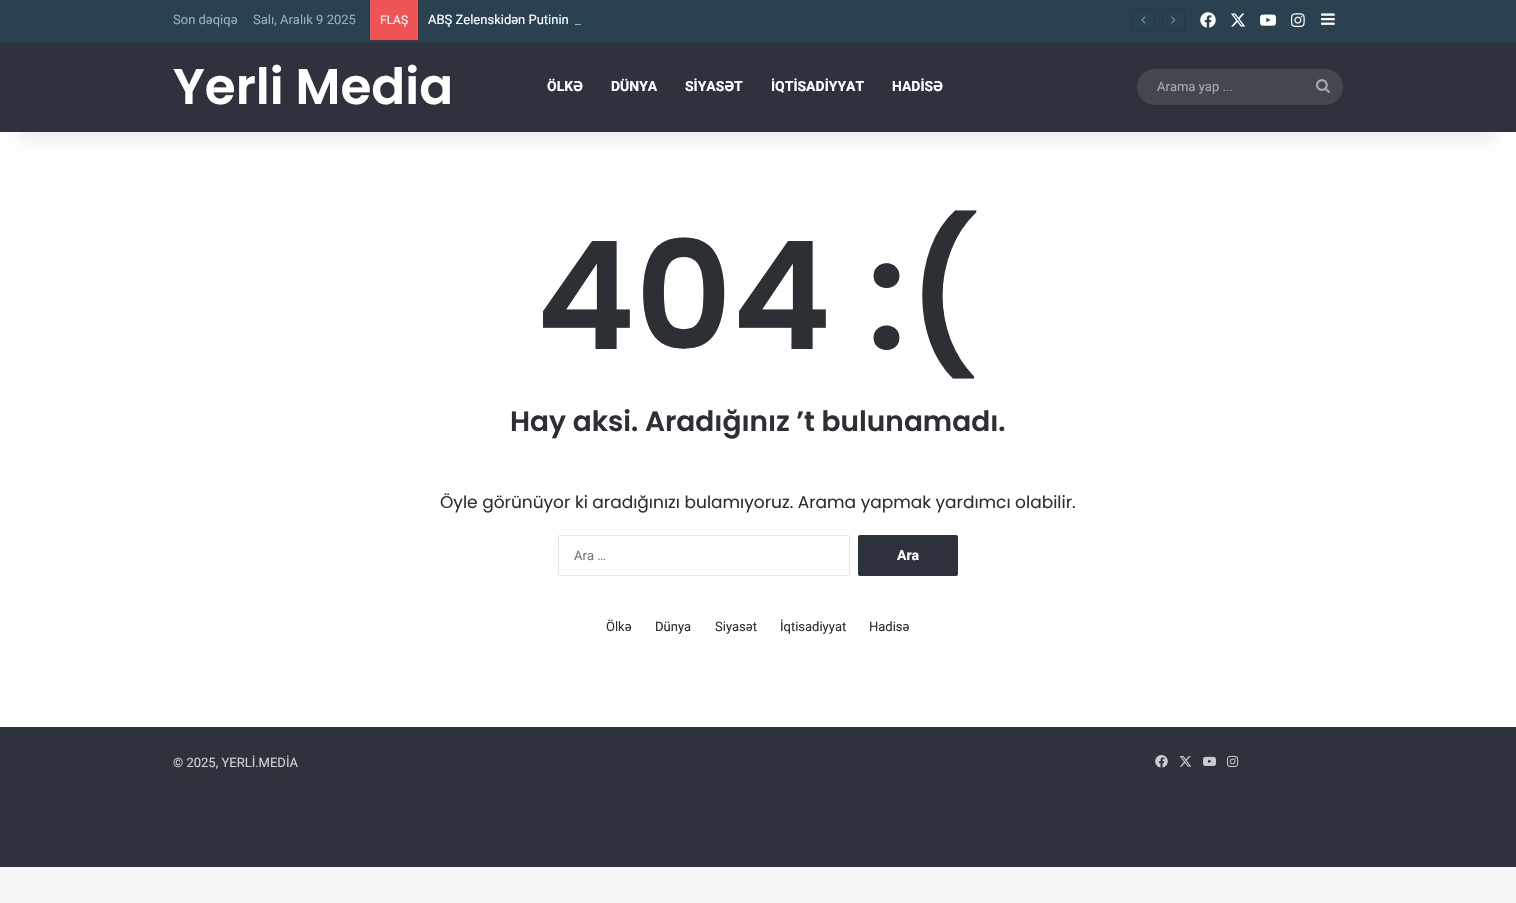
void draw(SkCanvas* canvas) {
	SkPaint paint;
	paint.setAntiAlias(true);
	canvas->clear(0xfff7f7f7);
	paint.setColor(0xffffffff);
	canvas->drawRect(SkRect::MakeXYWH(0, 132, 1516, 595), paint);
	paint.setColor(0x1a000000);
	paint.setMaskFilter(SkMaskFilter::MakeBlur(kNormal_SkBlurStyle, 10));
	canvas->drawRect(SkRect::MakeXYWH(20, 45, 1476, 92), paint);
	paint.setMaskFilter(nullptr);
	paint.setColor(0xff2a4150);
	canvas->drawRect(SkRect::MakeXYWH(0, 0, 1516, 42), paint);
	paint.setColor(0xff263b48);
	canvas->drawRect(SkRect::MakeXYWH(0, 42, 1516, 1), paint);
	SkFont f1(fontMgr->matchFamilyStyle("Roboto", SkFontStyle::Normal()), 13);
	f1.setSubpixel(true);
	paint.setColor(0xff90b3bb);
	canvas->drawString("Son dəqiqə", 173, 24, f1, paint);
	canvas->drawString("Salı, Aralık 9 2025", 253, 24, f1, paint);
	paint.setColor(0xfff05555);
	canvas->drawRect(SkRect::MakeXYWH(370, 0, 48, 40), paint);
	SkFont f2(fontMgr->matchFamilyStyle("Roboto", SkFontStyle::Normal()), 12);
	f2.setSubpixel(true);
	paint.setColor(0xffffffff);
	canvas->drawString("FLAŞ", 380, 24, f2, paint);
	canvas->drawString("ABŞ Zelenskidən Putinin", 428, 24, f1, paint);
	paint.setColor(0xff90b3bb);
	canvas->drawString("_", 575, 24, f1, paint);
	paint.setStroke(true);
	paint.setStrokeWidth(1);
	paint.setColor(0xff263b48);
	canvas->drawRoundRect(SkRect::MakeXYWH(1132.5, 9.5, 22, 22), 1.5, 1.5, paint);
	canvas->drawImageRect(SkImages::DeferredFromEncodedData(SkData::MakeFromFileName("img1.png")), SkRect::MakeXYWH(1141, 16, 5, 8), SkSamplingOptions());
	canvas->drawRoundRect(SkRect::MakeXYWH(1162.5, 9.5, 22, 22), 1.5, 1.5, paint);
	canvas->drawImageRect(SkImages::DeferredFromEncodedData(SkData::MakeFromFileName("img2.png")), SkRect::MakeXYWH(1171, 16, 5, 8), SkSamplingOptions());
	canvas->drawImageRect(SkImages::DeferredFromEncodedData(SkData::MakeFromFileName("img3.png")), SkRect::MakeXYWH(1200, 12, 16, 16), SkSamplingOptions());
	canvas->drawImageRect(SkImages::DeferredFromEncodedData(SkData::MakeFromFileName("img4.png")), SkRect::MakeXYWH(1231, 13, 15, 14), SkSamplingOptions());
	canvas->drawImageRect(SkImages::DeferredFromEncodedData(SkData::MakeFromFileName("img5.png")), SkRect::MakeXYWH(1260, 14, 16, 12), SkSamplingOptions());
	canvas->drawImageRect(SkImages::DeferredFromEncodedData(SkData::MakeFromFileName("img6.png")), SkRect::MakeXYWH(1291, 13, 14, 14), SkSamplingOptions());
	canvas->drawImageRect(SkImages::DeferredFromEncodedData(SkData::MakeFromFileName("img7.png")), SkRect::MakeXYWH(1321, 13, 14, 12), SkSamplingOptions());
	paint.setStroke(false);
	paint.setColor(0xff2e323c);
	canvas->drawRect(SkRect::MakeXYWH(0, 43, 1516, 89), paint);
	SkFont f3(fontMgr->matchFamilyStyle("Poppins", SkFontStyle(600, SkFontStyle::kNormal_Width, SkFontStyle::kUpright_Slant)), 50);
	f3.setSubpixel(true);
	paint.setColor(0xffffffff);
	canvas->drawString("Yerli Media", 173, 104, f3, paint);
	SkFont f4(fontMgr->matchFamilyStyle("Roboto", SkFontStyle::Bold()), 14);
	f4.setSubpixel(true);
	canvas->drawString("ÖLKƏ", 547, 91, f4, paint);
	canvas->drawString("DÜNYA", 611, 91, f4, paint);
	canvas->drawString("SİYASƏT", 685, 91, f4, paint);
	canvas->drawString("İQTİSADİYYAT", 771, 91, f4, paint);
	canvas->drawString("HADİSƏ", 892, 91, f4, paint);
	paint.setColor(0xff434750);
	canvas->drawRoundRect(SkRect::MakeXYWH(1137, 69, 206, 36), 18, 18, paint);
	paint.setColor(0xffaaaaaa);
	canvas->drawString("Arama yap ...", 1157, 91, f1, paint);
	canvas->drawImageRect(SkImages::DeferredFromEncodedData(SkData::MakeFromFileName("img8.png")), SkRect::MakeXYWH(1316, 79, 14, 14), SkSamplingOptions());
	SkFont f5(fontMgr->matchFamilyStyle("Poppins", SkFontStyle(600, SkFontStyle::kNormal_Width, SkFontStyle::kUpright_Slant)), 150);
	f5.setSubpixel(true);
	paint.setColor(0xff2c2f34);
	canvas->drawString("404 :(", 536, 349, f5, paint);
	SkFont f6(fontMgr->matchFamilyStyle("Poppins", SkFontStyle(600, SkFontStyle::kNormal_Width, SkFontStyle::kUpright_Slant)), 28);
	f6.setSubpixel(true);
	canvas->drawString("Hay aksi. Aradığınız ’t bulunamadı.", 510, 431, f6, paint);
	SkFont f7(fontMgr->matchFamilyStyle("Poppins", SkFontStyle::Normal()), 17);
	f7.setSubpixel(true);
	canvas->drawString("Öyle görünüyor ki aradığınızı bulamıyoruz. Arama yapmak yardımcı olabilir.", 440, 508, f7, paint);
	paint.setStroke(true);
	paint.setColor(0xffe6e6e6);
	canvas->drawRoundRect(SkRect::MakeXYWH(558.5, 535.5, 291, 40), 1.5, 1.5, paint);
	paint.setStroke(false);
	paint.setColor(0xff757575);
	canvas->drawString("Ara …", 574, 560, f1, paint);
	paint.setColor(0xff2e323c);
	canvas->drawRoundRect(SkRect::MakeXYWH(858, 535, 100, 41), 2, 2, paint);
	paint.setColor(0xffffffff);
	canvas->drawString("Ara", 897, 560, f4, paint);
	paint.setColor(0xff2c2f34);
	canvas->drawString("Ölkə", 606, 631, f1, paint);
	canvas->drawString("Dünya", 655, 631, f1, paint);
	canvas->drawString("Siyasət", 715, 631, f1, paint);
	canvas->drawString("İqtisadiyyat", 780, 631, f1, paint);
	canvas->drawString("Hadisə", 869, 631, f1, paint);
	paint.setColor(0xff2e323c);
	canvas->drawRect(SkRect::MakeXYWH(0, 727, 1516, 140), paint);
	paint.setColor(0xffd1d1d1);
	canvas->drawString("© 2025, YERLİ.MEDİA", 173, 767, f1, paint);
	canvas->drawImageRect(SkImages::DeferredFromEncodedData(SkData::MakeFromFileName("img9.png")), SkRect::MakeXYWH(1155, 755, 13, 13), SkSamplingOptions());
	canvas->drawImageRect(SkImages::DeferredFromEncodedData(SkData::MakeFromFileName("img10.png")), SkRect::MakeXYWH(1179, 756, 13, 11), SkSamplingOptions());
	canvas->drawImageRect(SkImages::DeferredFromEncodedData(SkData::MakeFromFileName("img11.png")), SkRect::MakeXYWH(1203, 756, 13, 10), SkSamplingOptions());
	canvas->drawImageRect(SkImages::DeferredFromEncodedData(SkData::MakeFromFileName("img12.png")), SkRect::MakeXYWH(1227, 755, 12, 12), SkSamplingOptions());
}
